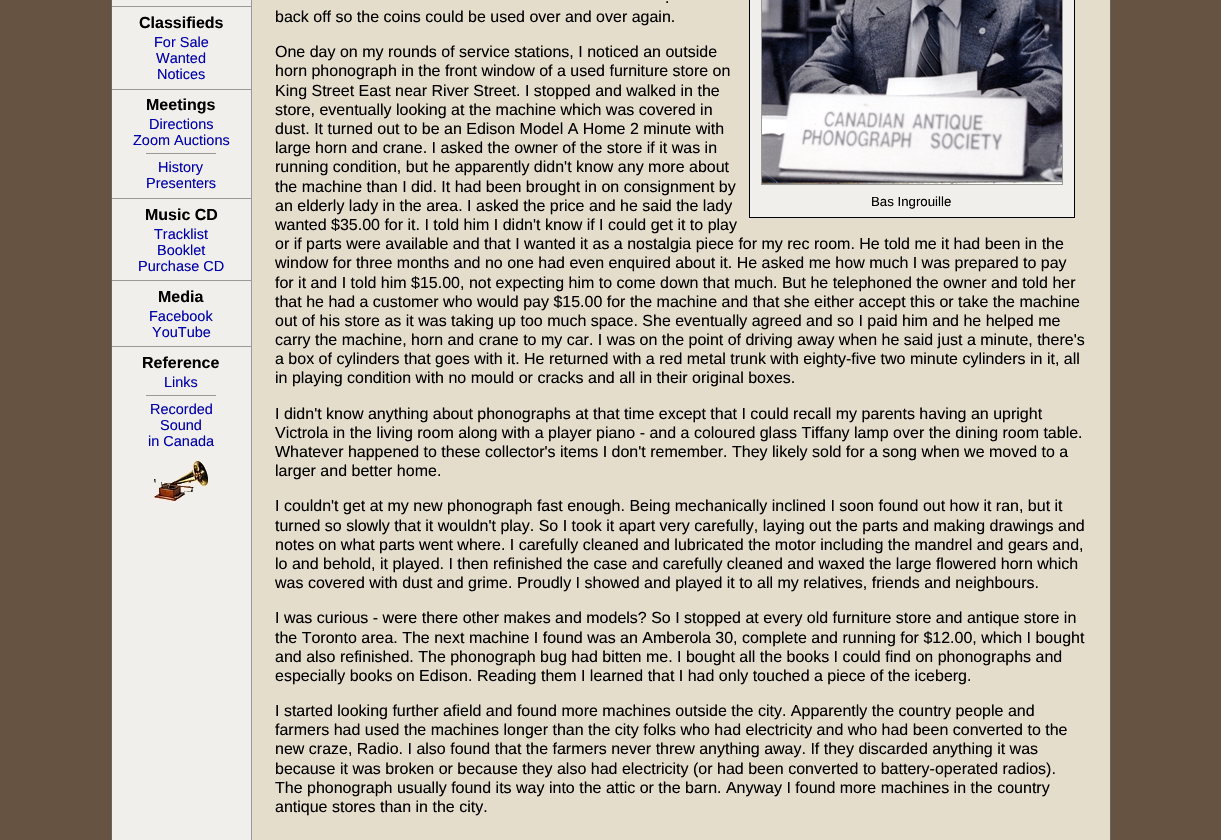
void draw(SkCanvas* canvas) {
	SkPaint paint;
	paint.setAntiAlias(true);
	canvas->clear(0xff665342);
	paint.setStroke(true);
	paint.setStrokeWidth(1);
	paint.setColor(0xff666666);
	canvas->drawRect(SkRect::MakeXYWH(111.5, -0.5, 999, 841), paint);
	paint.setStroke(false);
	paint.setColor(0xfff0efeb);
	canvas->drawRect(SkRect::MakeXYWH(112, 0, 139, 840), paint);
	paint.setColor(0xff999999);
	canvas->drawRect(SkRect::MakeXYWH(251, 0, 1, 840), paint);
	canvas->drawRect(SkRect::MakeXYWH(112, 6, 139, 1), paint);
	SkFont f1(fontMgr->matchFamilyStyle("Liberation Sans", SkFontStyle::Bold()), 16);
	f1.setSubpixel(true);
	paint.setColor(0xff000000);
	canvas->drawString("Classifieds", 139, 28, f1, paint);
	SkFont f2(fontMgr->matchFamilyStyle("Liberation Sans", SkFontStyle::Normal()), 14.5);
	f2.setSubpixel(true);
	paint.setColor(0xff0000aa);
	canvas->drawString("For Sale", 154, 47, f2, paint);
	canvas->drawString("Wanted", 156, 63, f2, paint);
	canvas->drawString("Notices", 157, 79, f2, paint);
	paint.setColor(0xff999999);
	canvas->drawRect(SkRect::MakeXYWH(112, 89, 139, 1), paint);
	paint.setColor(0xff000000);
	canvas->drawString("Meetings", 146, 110, f1, paint);
	paint.setColor(0xff0000aa);
	canvas->drawString("Directions", 149, 129, f2, paint);
	canvas->drawString("Zoom Auctions", 133, 145, f2, paint);
	paint.setColor(0xff999999);
	canvas->drawRect(SkRect::MakeXYWH(146, 153, 70, 1), paint);
	paint.setColor(0xff0000aa);
	canvas->drawString("History", 158, 172, f2, paint);
	canvas->drawString("Presenters", 146, 188, f2, paint);
	paint.setColor(0xff999999);
	canvas->drawRect(SkRect::MakeXYWH(112, 198, 139, 1), paint);
	paint.setColor(0xff000000);
	canvas->drawString("Music CD", 145, 220, f1, paint);
	paint.setColor(0xff0000aa);
	canvas->drawString("Tracklist", 154, 239, f2, paint);
	canvas->drawString("Booklet", 157, 255, f2, paint);
	canvas->drawString("Purchase CD", 138, 271, f2, paint);
	paint.setColor(0xff999999);
	canvas->drawRect(SkRect::MakeXYWH(112, 280, 139, 1), paint);
	paint.setColor(0xff000000);
	canvas->drawString("Media", 158, 302, f1, paint);
	paint.setColor(0xff0000aa);
	canvas->drawString("Facebook", 149, 321, f2, paint);
	canvas->drawString("YouTube", 152, 337, f2, paint);
	paint.setColor(0xff999999);
	canvas->drawRect(SkRect::MakeXYWH(112, 346, 139, 1), paint);
	paint.setColor(0xff000000);
	canvas->drawString("Reference", 142, 368, f1, paint);
	paint.setColor(0xff0000aa);
	canvas->drawString("Links", 164, 387, f2, paint);
	paint.setColor(0xff999999);
	canvas->drawRect(SkRect::MakeXYWH(146, 395, 70, 1), paint);
	paint.setColor(0xff0000aa);
	canvas->drawString("Recorded", 150, 414, f2, paint);
	canvas->drawString("Sound", 160, 430, f2, paint);
	canvas->drawString("in Canada", 148, 446, f2, paint);
	canvas->drawImageRect(SkImages::DeferredFromEncodedData(SkData::MakeFromFileName("img1.png")), SkRect::MakeXYWH(153, 459, 56, 44), SkSamplingOptions());
	paint.setColor(0xffe4ddcc);
	canvas->drawRect(SkRect::MakeXYWH(252, 0, 858, 840), paint);
	SkFont f3(fontMgr->matchFamilyStyle("Liberation Sans", SkFontStyle::Normal()), 16);
	f3.setSubpixel(true);
	paint.setColor(0xff000000);
	canvas->drawString(".", 665, 3, f3, paint);
	canvas->drawString("back off so the coins could be used over and over again.", 275, 22, f3, paint);
	canvas->drawString("One day on my rounds of service stations, I noticed an outside", 275, 57, f3, paint);
	canvas->drawString("horn phonograph in the front window of a used furniture store on", 275, 76, f3, paint);
	canvas->drawString("King Street East near River Street. I stopped and walked in the", 275, 96, f3, paint);
	canvas->drawString("store, eventually looking at the machine which was covered in", 275, 115, f3, paint);
	canvas->drawString("dust. It turned out to be an Edison Model A Home 2 minute with", 275, 134, f3, paint);
	canvas->drawString("large horn and crane. I asked the owner of the store if it was in", 275, 153, f3, paint);
	canvas->drawString("running condition, but he apparently didn't know any more about", 275, 172, f3, paint);
	canvas->drawString("the machine than I did. It had been brought in on consignment by", 275, 192, f3, paint);
	canvas->drawString("an elderly lady in the area. I asked the price and he said the lady", 275, 211, f3, paint);
	canvas->drawString("wanted $35.00 for it. I told him I didn't know if I could get it to play", 275, 230, f3, paint);
	canvas->drawString("or if parts were available and that I wanted it as a nostalgia piece for my rec room. He told me it had been in the", 275, 249, f3, paint);
	canvas->drawString("window for three months and no one had even enquired about it. He asked me how much I was prepared to pay", 275, 268, f3, paint);
	canvas->drawString("for it and I told him $15.00, not expecting him to come down that much. But he telephoned the owner and told her", 275, 288, f3, paint);
	canvas->drawString("that he had a customer who would pay $15.00 for the machine and that she either accept this or take the machine", 275, 307, f3, paint);
	canvas->drawString("out of his store as it was taking up too much space. She eventually agreed and so I paid him and he helped me", 275, 326, f3, paint);
	canvas->drawString("carry the machine, horn and crane to my car. I was on the point of driving away when he said just a minute, there's", 275, 345, f3, paint);
	canvas->drawString("a box of cylinders that goes with it. He returned with a red metal trunk with eighty-five two minute cylinders in it, all", 275, 364, f3, paint);
	canvas->drawString("in playing condition with no mould or cracks and all in their original boxes.", 275, 383, f3, paint);
	paint.setStroke(true);
	canvas->drawRect(SkRect::MakeXYWH(749.5, -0.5, 325, 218), paint);
	paint.setStroke(false);
	paint.setColor(0xfff0efeb);
	canvas->drawRect(SkRect::MakeXYWH(750, 0, 324, 217), paint);
	paint.setStroke(true);
	paint.setColor(0xff999999);
	canvas->drawRect(SkRect::MakeXYWH(761.5, -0.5, 301, 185), paint);
	canvas->drawImageRect(SkImages::DeferredFromEncodedData(SkData::MakeFromFileName("img2.png")), SkRect::MakeXYWH(762, 0, 300, 184), SkSamplingOptions());
	SkFont f4(fontMgr->matchFamilyStyle("Liberation Sans", SkFontStyle::Normal()), 13.25);
	f4.setSubpixel(true);
	paint.setStroke(false);
	paint.setColor(0xff000000);
	canvas->drawString("Bas Ingrouille", 871, 206, f4, paint);
	canvas->drawString("I didn't know anything about phonographs at that time except that I could recall my parents having an upright", 275, 419, f3, paint);
	canvas->drawString("Victrola in the living room along with a player piano - and a coloured glass Tiffany lamp over the dining room table.", 275, 438, f3, paint);
	canvas->drawString("Whatever happened to these collector's items I don't remember. They likely sold for a song when we moved to a", 275, 457, f3, paint);
	canvas->drawString("larger and better home.", 275, 476, f3, paint);
	canvas->drawString("I couldn't get at my new phonograph fast enough. Being mechanically inclined I soon found out how it ran, but it", 275, 511, f3, paint);
	canvas->drawString("turned so slowly that it wouldn't play. So I took it apart very carefully, laying out the parts and making drawings and", 275, 531, f3, paint);
	canvas->drawString("notes on what parts went where. I carefully cleaned and lubricated the motor including the mandrel and gears and,", 275, 550, f3, paint);
	canvas->drawString("lo and behold, it played. I then refinished the case and carefully cleaned and waxed the large flowered horn which", 275, 569, f3, paint);
	canvas->drawString("was covered with dust and grime. Proudly I showed and played it to all my relatives, friends and neighbours.", 275, 588, f3, paint);
	canvas->drawString("I was curious - were there other makes and models? So I stopped at every old furniture store and antique store in", 275, 623, f3, paint);
	canvas->drawString("the Toronto area. The next machine I found was an Amberola 30, complete and running for $12.00, which I bought", 275, 643, f3, paint);
	canvas->drawString("and also refinished. The phonograph bug had bitten me. I bought all the books I could find on phonographs and", 275, 662, f3, paint);
	canvas->drawString("especially books on Edison. Reading them I learned that I had only touched a piece of the iceberg.", 275, 681, f3, paint);
	canvas->drawString("I started looking further afield and found more machines outside the city. Apparently the country people and", 275, 716, f3, paint);
	canvas->drawString("farmers had used the machines longer than the city folks who had electricity and who had been converted to the", 275, 735, f3, paint);
	canvas->drawString("new craze, Radio. I also found that the farmers never threw anything away. If they discarded anything it was", 275, 754, f3, paint);
	canvas->drawString("because it was broken or because they also had electricity (or had been converted to battery-operated radios).", 275, 774, f3, paint);
	canvas->drawString("The phonograph usually found its way into the attic or the barn. Anyway I found more machines in the country", 275, 793, f3, paint);
	canvas->drawString("antique stores than in the city.", 275, 812, f3, paint);
}
